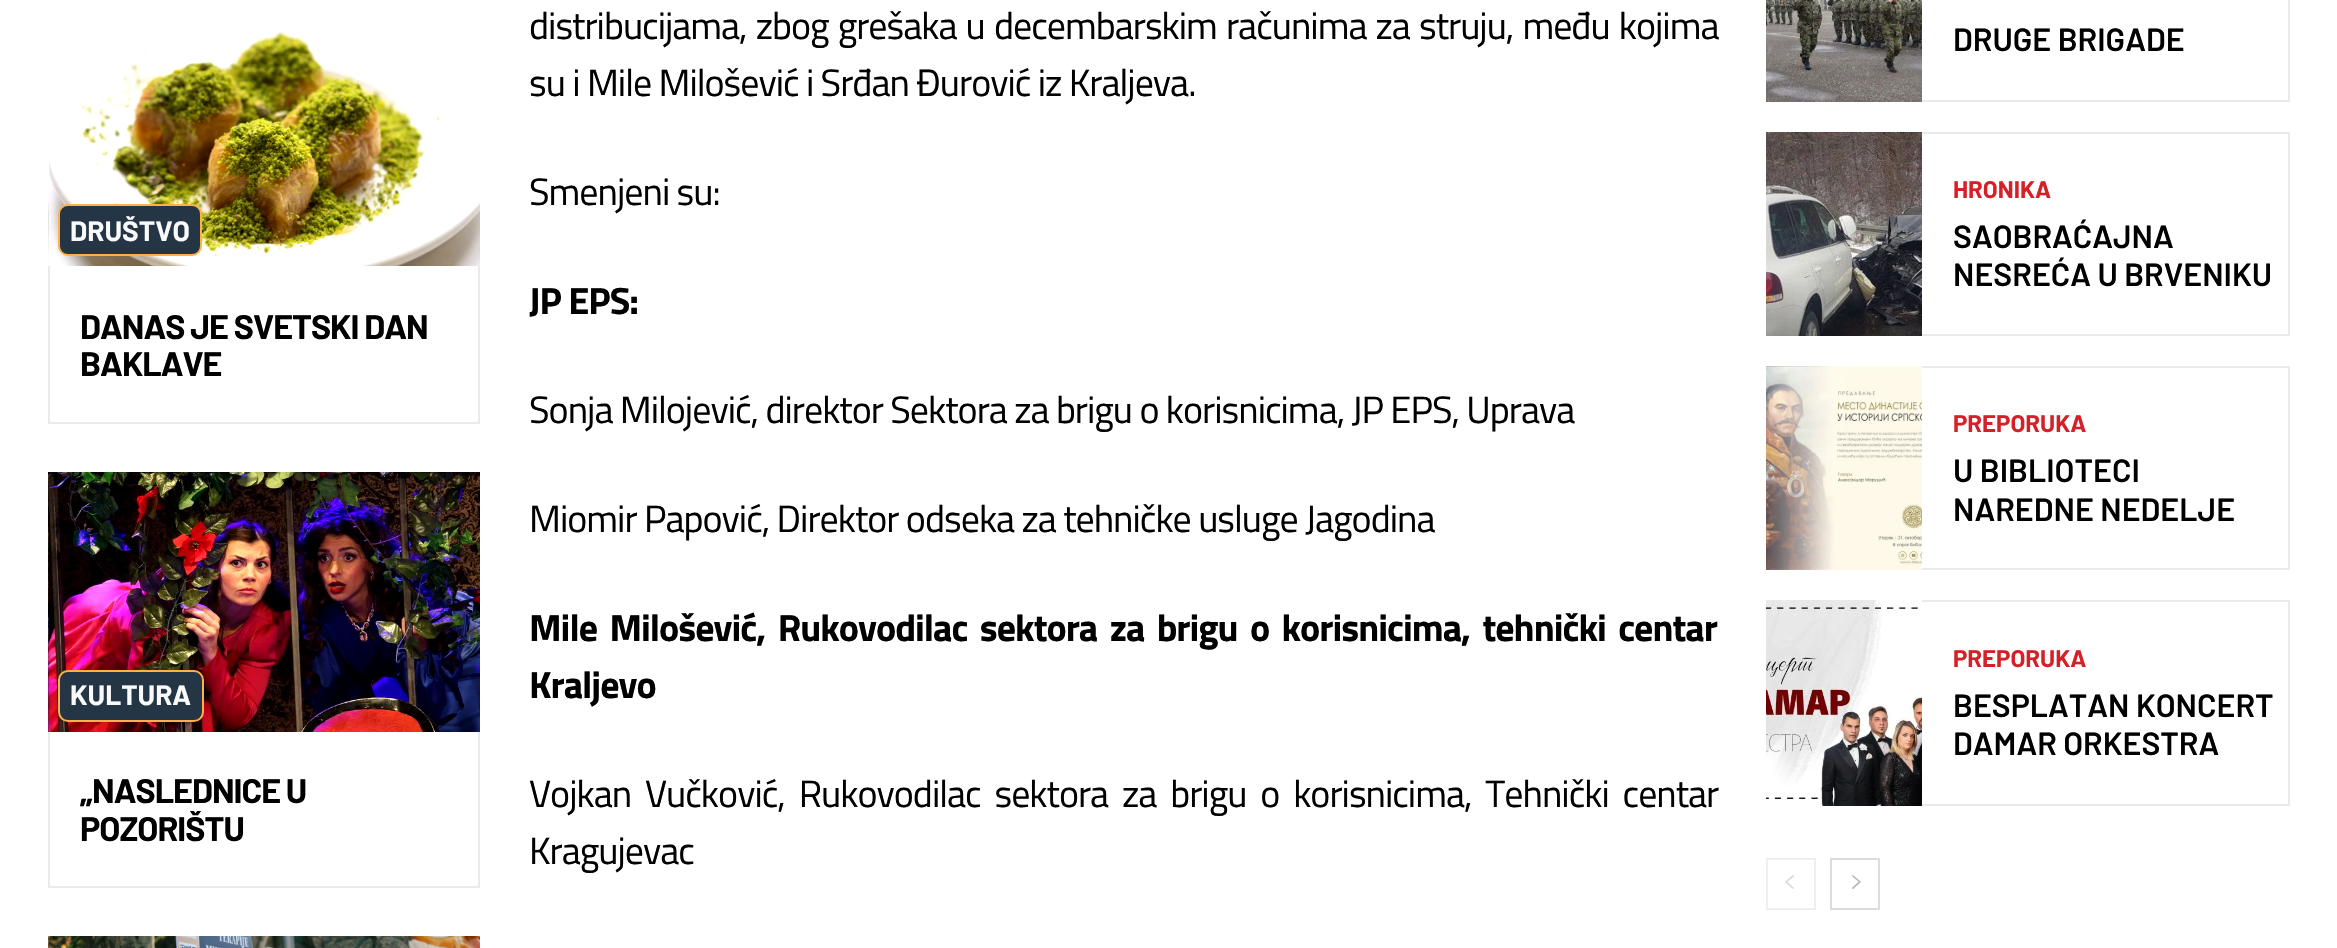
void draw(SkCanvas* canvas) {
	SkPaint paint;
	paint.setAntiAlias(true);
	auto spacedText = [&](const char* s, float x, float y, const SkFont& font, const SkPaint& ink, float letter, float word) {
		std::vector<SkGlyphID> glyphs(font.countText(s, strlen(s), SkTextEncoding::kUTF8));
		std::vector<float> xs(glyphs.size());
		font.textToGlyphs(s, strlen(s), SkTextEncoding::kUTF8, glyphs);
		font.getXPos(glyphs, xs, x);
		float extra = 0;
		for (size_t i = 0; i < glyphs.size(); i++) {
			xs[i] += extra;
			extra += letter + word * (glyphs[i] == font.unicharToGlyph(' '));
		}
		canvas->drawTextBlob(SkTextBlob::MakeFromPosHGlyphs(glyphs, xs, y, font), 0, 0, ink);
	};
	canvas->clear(0xffffffff);
	canvas->drawImageRect(SkImages::DeferredFromEncodedData(SkData::MakeFromFileName("img1.png")), SkRect::MakeXYWH(48, 8, 432, 258), SkSamplingOptions());
	paint.setColor(0xff243646);
	canvas->drawRoundRect(SkRect::MakeXYWH(59, 205, 142, 50), 9, 9, paint);
	paint.setStroke(true);
	paint.setStrokeWidth(2);
	paint.setColor(0xffffb049);
	canvas->drawRoundRect(SkRect::MakeXYWH(59, 205, 142, 50), 9, 9, paint);
	SkFont f1(fontMgr->matchFamilyStyle("Barlow", SkFontStyle::Bold()), 28);
	f1.setSubpixel(true);
	paint.setStroke(false);
	paint.setColor(0xfffafafa);
	canvas->drawString("DRUŠTVO", 70, 241, f1, paint);
	paint.setColor(0xffeaeaea);
	canvas->drawRect(SkRect::MakeXYWH(478, 266, 2, 158), paint);
	canvas->drawRect(SkRect::MakeXYWH(48, 422, 432, 2), paint);
	canvas->drawRect(SkRect::MakeXYWH(48, 266, 2, 158), paint);
	SkFont f2(fontMgr->matchFamilyStyle("Barlow", SkFontStyle::Bold()), 34);
	f2.setSubpixel(true);
	paint.setColor(0xff000000);
	spacedText("DANAS JE SVETSKI DAN", 80, 339, f2, paint, -1, 0);
	spacedText("BAKLAVE", 80, 376, f2, paint, -1, 0);
	canvas->drawImageRect(SkImages::DeferredFromEncodedData(SkData::MakeFromFileName("img2.png")), SkRect::MakeXYWH(48, 472, 432, 260), SkSamplingOptions());
	paint.setColor(0xff243646);
	canvas->drawRoundRect(SkRect::MakeXYWH(59, 671, 144, 50), 9, 9, paint);
	paint.setStroke(true);
	paint.setColor(0xffffb049);
	canvas->drawRoundRect(SkRect::MakeXYWH(59, 671, 144, 50), 9, 9, paint);
	paint.setStroke(false);
	paint.setColor(0xfffafafa);
	canvas->drawString("KULTURA", 70, 705, f1, paint);
	paint.setColor(0xffeaeaea);
	canvas->drawRect(SkRect::MakeXYWH(478, 732, 2, 156), paint);
	canvas->drawRect(SkRect::MakeXYWH(48, 886, 432, 2), paint);
	canvas->drawRect(SkRect::MakeXYWH(48, 732, 2, 156), paint);
	paint.setColor(0xff000000);
	spacedText("„NASLEDNICE U", 80, 803, f2, paint, -1, 0);
	spacedText("POZORIŠTU", 80, 841, f2, paint, -1, 0);
	canvas->drawImageRect(SkImages::DeferredFromEncodedData(SkData::MakeFromFileName("img3.png")), SkRect::MakeXYWH(48, 936, 432, 12), SkSamplingOptions());
	SkFont f3(fontMgr->matchFamilyStyle("Titillium Web", SkFontStyle::Normal()), 38);
	f3.setSubpixel(true);
	spacedText("distribucijama, zbog grešaka u decembarskim računima za struju, među kojima", 529, 39, f3, paint, -1, 1.75);
	spacedText("su i Mile Milošević i Srđan Đurović iz Kraljeva.", 529, 96, f3, paint, -1, 0);
	spacedText("Smenjeni su:", 529, 205, f3, paint, -1, 0);
	SkFont f4(fontMgr->matchFamilyStyle("Titillium Web", SkFontStyle::Bold()), 38);
	f4.setSubpixel(true);
	spacedText("JP EPS:", 529, 314, f4, paint, -1, 0);
	spacedText("Sonja Milojević, direktor Sektora za brigu o korisnicima, JP EPS, Uprava", 529, 423, f3, paint, -1, 0);
	spacedText("Miomir Papović, Direktor odseka za tehničke usluge Jagodina", 529, 532, f3, paint, -1, 0);
	spacedText("Mile Milošević, Rukovodilac sektora za brigu o korisnicima, tehnički centar", 529, 641, f4, paint, -1, 5);
	spacedText("Kraljevo", 529, 698, f4, paint, -1, 0);
	spacedText("Vojkan Vučković, Rukovodilac sektora za brigu o korisnicima, Tehnički centar", 529, 807, f3, paint, -1, 6.5);
	spacedText("Kragujevac", 529, 864, f3, paint, -1, 0);
	canvas->drawImageRect(SkImages::DeferredFromEncodedData(SkData::MakeFromFileName("img4.png")), SkRect::MakeXYWH(1766, 0, 156, 102), SkSamplingOptions());
	paint.setColor(0xffeaeaea);
	canvas->drawRect(SkRect::MakeXYWH(2288, 0, 2, 102), paint);
	canvas->drawRect(SkRect::MakeXYWH(1922, 100, 368, 2), paint);
	SkFont f5(fontMgr->matchFamilyStyle("Barlow", SkFontStyle(600, SkFontStyle::kNormal_Width, SkFontStyle::kUpright_Slant)), 32);
	f5.setSubpixel(true);
	paint.setColor(0xff000000);
	canvas->drawString("DRUGE BRIGADE", 1953, 51, f5, paint);
	canvas->drawImageRect(SkImages::DeferredFromEncodedData(SkData::MakeFromFileName("img5.png")), SkRect::MakeXYWH(1766, 132, 156, 204), SkSamplingOptions());
	paint.setColor(0xffeaeaea);
	canvas->drawRect(SkRect::MakeXYWH(1922, 132, 368, 2), paint);
	canvas->drawRect(SkRect::MakeXYWH(2288, 132, 2, 204), paint);
	canvas->drawRect(SkRect::MakeXYWH(1922, 334, 368, 2), paint);
	SkFont f6(fontMgr->matchFamilyStyle("Barlow", SkFontStyle::Bold()), 24);
	f6.setSubpixel(true);
	paint.setColor(0xffd52027);
	canvas->drawString("HRONIKA", 1953, 198, f6, paint);
	paint.setColor(0xff000000);
	canvas->drawString("SAOBRAĆAJNA", 1953, 248, f5, paint);
	canvas->drawString("NESREĆA U BRVENIKU", 1953, 286, f5, paint);
	canvas->drawImageRect(SkImages::DeferredFromEncodedData(SkData::MakeFromFileName("img6.png")), SkRect::MakeXYWH(1766, 366, 156, 204), SkSamplingOptions());
	paint.setColor(0xffeaeaea);
	canvas->drawRect(SkRect::MakeXYWH(1922, 366, 368, 2), paint);
	canvas->drawRect(SkRect::MakeXYWH(2288, 366, 2, 204), paint);
	canvas->drawRect(SkRect::MakeXYWH(1922, 568, 368, 2), paint);
	paint.setColor(0xffd52027);
	canvas->drawString("PREPORUKA", 1953, 432, f6, paint);
	paint.setColor(0xff000000);
	canvas->drawString("U BIBLIOTECI", 1953, 482, f5, paint);
	canvas->drawString("NAREDNE NEDELJE", 1953, 521, f5, paint);
	canvas->drawImageRect(SkImages::DeferredFromEncodedData(SkData::MakeFromFileName("img7.png")), SkRect::MakeXYWH(1766, 600, 156, 206), SkSamplingOptions());
	paint.setColor(0xffeaeaea);
	canvas->drawRect(SkRect::MakeXYWH(1922, 600, 368, 2), paint);
	canvas->drawRect(SkRect::MakeXYWH(2288, 600, 2, 206), paint);
	canvas->drawRect(SkRect::MakeXYWH(1922, 804, 368, 2), paint);
	paint.setColor(0xffd52027);
	canvas->drawString("PREPORUKA", 1953, 667, f6, paint);
	paint.setColor(0xff000000);
	canvas->drawString("BESPLATAN KONCERT", 1953, 717, f5, paint);
	canvas->drawString("DAMAR ORKESTRA", 1953, 755, f5, paint);
	paint.setStroke(true);
	paint.setColor(0xffeeeeee);
	canvas->drawRect(SkRect::MakeXYWH(1767, 859, 48, 50), paint);
	canvas->drawImageRect(SkImages::DeferredFromEncodedData(SkData::MakeFromFileName("img8.png")), SkRect::MakeXYWH(1785, 875, 9, 14), SkSamplingOptions());
	paint.setColor(0xffdcdcdc);
	canvas->drawRect(SkRect::MakeXYWH(1831, 859, 48, 50), paint);
	canvas->drawImageRect(SkImages::DeferredFromEncodedData(SkData::MakeFromFileName("img9.png")), SkRect::MakeXYWH(1852, 875, 9, 14), SkSamplingOptions());
}
